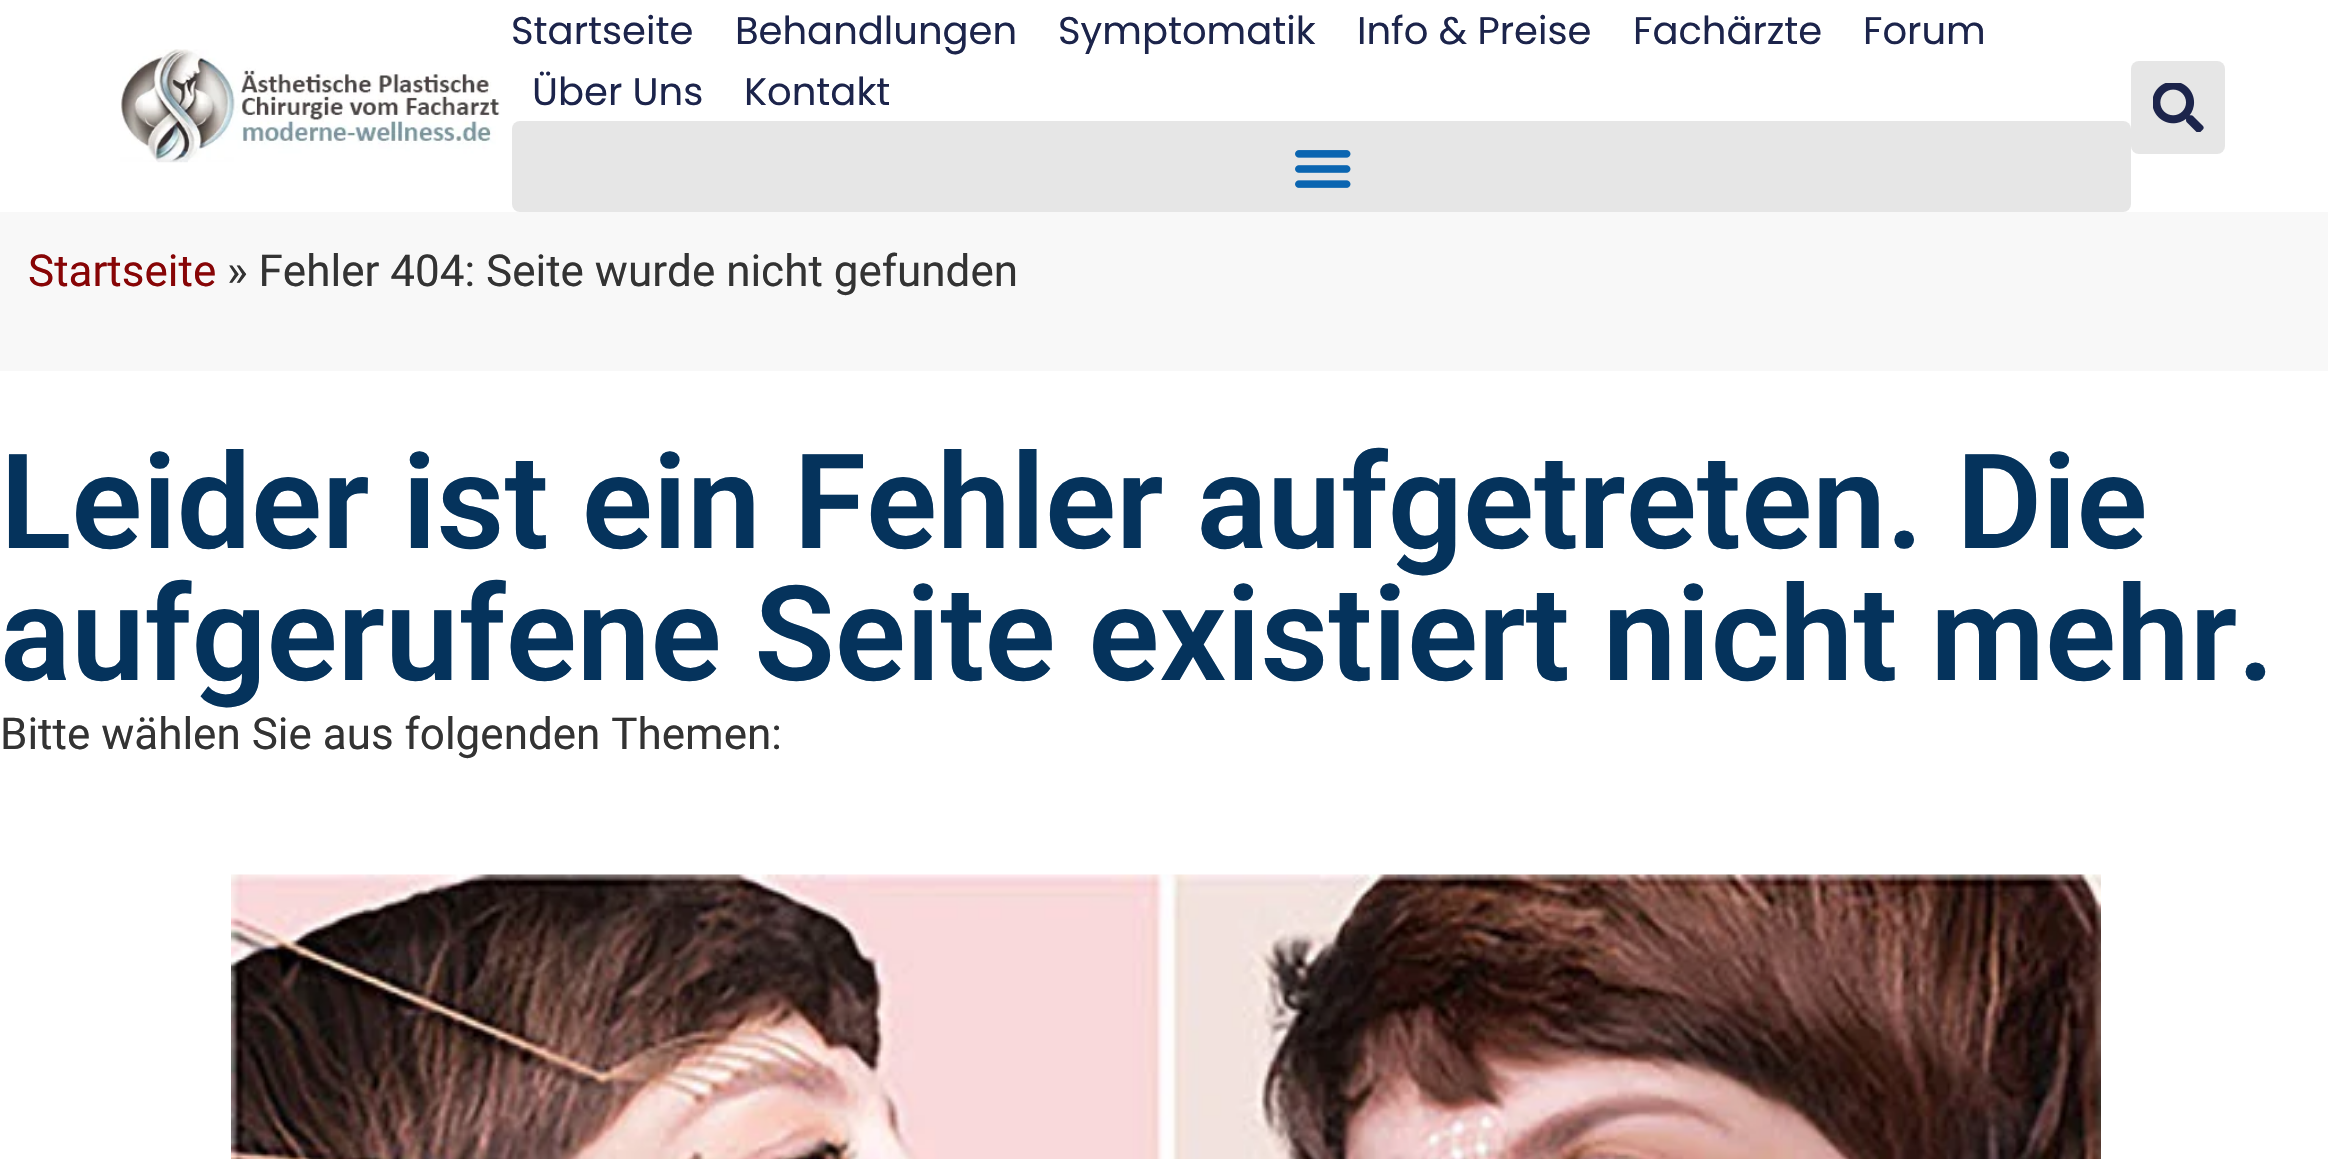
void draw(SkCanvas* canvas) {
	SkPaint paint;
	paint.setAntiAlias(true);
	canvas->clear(0xffffffff);
	canvas->drawImageRect(SkImages::DeferredFromEncodedData(SkData::MakeFromFileName("img1.png")), SkRect::MakeXYWH(120, 49, 380, 114), SkSamplingOptions());
	SkFont f1(fontMgr->matchFamilyStyle("Poppins", SkFontStyle::Normal()), 38.5);
	f1.setSubpixel(true);
	paint.setColor(0xff1c244b);
	canvas->drawString("Startseite", 511, 44, f1, paint);
	canvas->drawString("Behandlungen", 735, 44, f1, paint);
	canvas->drawString("Symptomatik", 1058, 44, f1, paint);
	canvas->drawString("Info & Preise", 1357, 44, f1, paint);
	canvas->drawString("Fachärzte", 1633, 44, f1, paint);
	canvas->drawString("Forum", 1863, 44, f1, paint);
	canvas->drawString("Über Uns", 532, 105, f1, paint);
	canvas->drawString("Kontakt", 744, 105, f1, paint);
	paint.setColor(0xffe6e6e6);
	canvas->drawRoundRect(SkRect::MakeXYWH(512, 121, 1619, 91), 8, 8, paint);
	canvas->drawImageRect(SkImages::DeferredFromEncodedData(SkData::MakeFromFileName("img2.png")), SkRect::MakeXYWH(1295, 150, 56, 38), SkSamplingOptions());
	canvas->drawRoundRect(SkRect::MakeXYWH(2131, 61, 94, 93), 8, 8, paint);
	canvas->drawImageRect(SkImages::DeferredFromEncodedData(SkData::MakeFromFileName("img3.png")), SkRect::MakeXYWH(2153, 83, 51, 49), SkSamplingOptions());
	paint.setColor(0xfff8f8f8);
	canvas->drawRect(SkRect::MakeXYWH(0, 212, 2328, 159), paint);
	SkFont f2(fontMgr->matchFamilyStyle("Roboto", SkFontStyle::Normal()), 44);
	f2.setSubpixel(true);
	paint.setColor(0xff870506);
	canvas->drawString("Startseite", 28, 286, f2, paint);
	paint.setColor(0xff333333);
	canvas->drawString("» Fehler 404: Seite wurde nicht gefunden", 227, 286, f2, paint);
	SkFont f3(fontMgr->matchFamilyStyle("Roboto", SkFontStyle(600, SkFontStyle::kNormal_Width, SkFontStyle::kUpright_Slant)), 132);
	f3.setSubpixel(true);
	paint.setColor(0xff05335c);
	canvas->drawString("Leider ist ein Fehler aufgetreten. Die", 0, 548, f3, paint);
	canvas->drawString("aufgerufene Seite existiert nicht mehr.", 0, 680, f3, paint);
	paint.setColor(0xff333333);
	canvas->drawString("Bitte wählen Sie aus folgenden Themen:", 0, 749, f2, paint);
	canvas->drawImageRect(SkImages::DeferredFromEncodedData(SkData::MakeFromFileName("img4.png")), SkRect::MakeXYWH(231, 874, 1870, 285), SkSamplingOptions());
}
